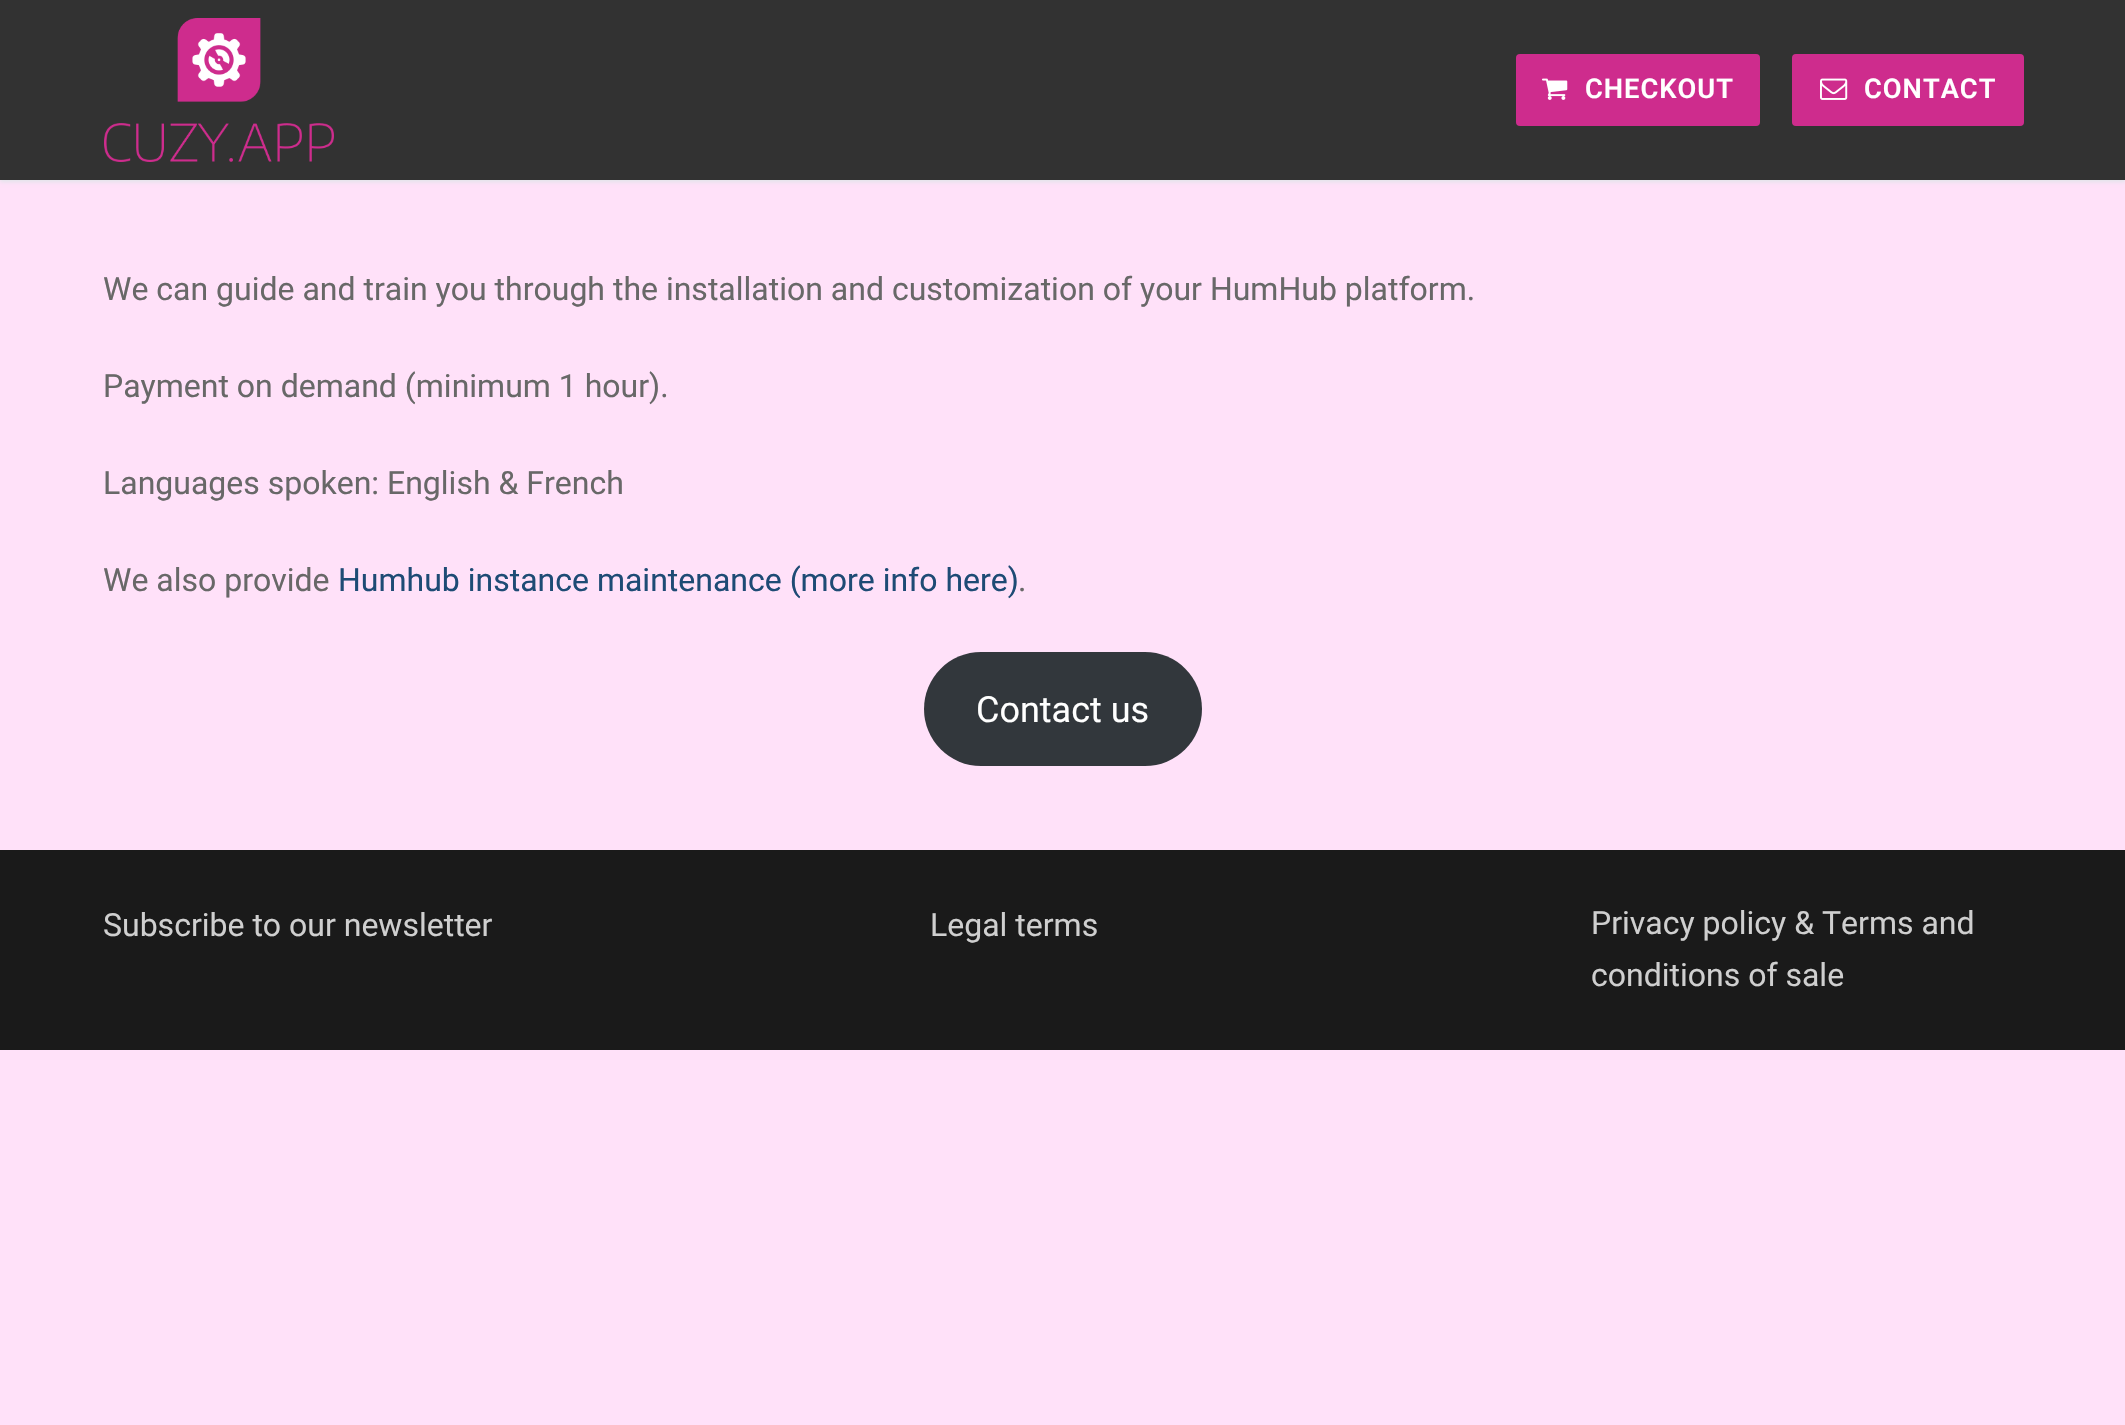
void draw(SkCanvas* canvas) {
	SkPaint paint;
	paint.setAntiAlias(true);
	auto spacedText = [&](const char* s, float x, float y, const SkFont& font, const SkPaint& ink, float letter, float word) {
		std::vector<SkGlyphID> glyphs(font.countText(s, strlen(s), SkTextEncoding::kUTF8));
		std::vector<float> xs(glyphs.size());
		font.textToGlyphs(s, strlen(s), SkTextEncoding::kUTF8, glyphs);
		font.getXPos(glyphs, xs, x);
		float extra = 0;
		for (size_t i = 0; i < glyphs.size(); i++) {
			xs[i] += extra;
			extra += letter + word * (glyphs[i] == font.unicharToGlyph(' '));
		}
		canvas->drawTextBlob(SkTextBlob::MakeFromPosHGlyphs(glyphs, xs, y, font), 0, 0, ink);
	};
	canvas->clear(0xffffe1f9);
	paint.setColor(0xffe1e5ea);
	paint.setMaskFilter(SkMaskFilter::MakeBlur(kNormal_SkBlurStyle, 2));
	canvas->drawRect(SkRect::MakeXYWH(0, 2, 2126, 180), paint);
	paint.setMaskFilter(nullptr);
	paint.setColor(0xff323232);
	canvas->drawRect(SkRect::MakeXYWH(0, 0, 2125, 180), paint);
	canvas->drawImageRect(SkImages::DeferredFromEncodedData(SkData::MakeFromFileName("img1.png")), SkRect::MakeXYWH(104, 18, 230, 144), SkSamplingOptions());
	paint.setColor(0xffce2c8d);
	canvas->drawRoundRect(SkRect::MakeXYWH(1516, 54, 244, 72), 4, 4, paint);
	canvas->drawImageRect(SkImages::DeferredFromEncodedData(SkData::MakeFromFileName("img2.png")), SkRect::MakeXYWH(1542, 78, 26, 22), SkSamplingOptions());
	SkFont f1(fontMgr->matchFamilyStyle("Roboto", SkFontStyle(600, SkFontStyle::kNormal_Width, SkFontStyle::kUpright_Slant)), 27.25);
	f1.setSubpixel(true);
	paint.setColor(0xffffffff);
	spacedText("CHECKOUT", 1585, 98, f1, paint, 1, 0);
	paint.setColor(0xffce2c8d);
	canvas->drawRoundRect(SkRect::MakeXYWH(1792, 54, 232, 72), 4, 4, paint);
	canvas->drawImageRect(SkImages::DeferredFromEncodedData(SkData::MakeFromFileName("img3.png")), SkRect::MakeXYWH(1820, 78, 28, 22), SkSamplingOptions());
	paint.setColor(0xffffffff);
	spacedText("CONTACT", 1864, 98, f1, paint, 1, 0);
	SkFont f2(fontMgr->matchFamilyStyle("Roboto", SkFontStyle::Normal()), 32);
	f2.setSubpixel(true);
	paint.setColor(0xff686868);
	canvas->drawString("We can guide and train you through the installation and customization of your HumHub platform.", 103, 300, f2, paint);
	canvas->drawString("Payment on demand (minimum 1 hour).", 103, 397, f2, paint);
	canvas->drawString("Languages spoken: English & French", 103, 494, f2, paint);
	canvas->drawString("We also provide", 103, 591, f2, paint);
	paint.setColor(0xff1e4b75);
	canvas->drawString("Humhub instance maintenance (more info here)", 338, 591, f2, paint);
	paint.setColor(0xff686868);
	canvas->drawString(".", 1018, 591, f2, paint);
	paint.setColor(0xff32373c);
	canvas->drawRoundRect(SkRect::MakeXYWH(924, 652, 278, 114), 57, 57, paint);
	SkFont f3(fontMgr->matchFamilyStyle("Roboto", SkFontStyle::Normal()), 36);
	f3.setSubpixel(true);
	paint.setColor(0xffffffff);
	canvas->drawString("Contact us", 976, 722, f3, paint);
	paint.setColor(0xff1a1a1a);
	canvas->drawRect(SkRect::MakeXYWH(0, 850, 2125, 200), paint);
	paint.setColor(0xffcfcfcf);
	canvas->drawString("Subscribe to our newsletter", 103, 936, f2, paint);
	canvas->drawString("Legal terms", 930, 936, f2, paint);
	canvas->drawString("Privacy policy & Terms and", 1591, 934, f2, paint);
	canvas->drawString("conditions of sale", 1591, 986, f2, paint);
}
